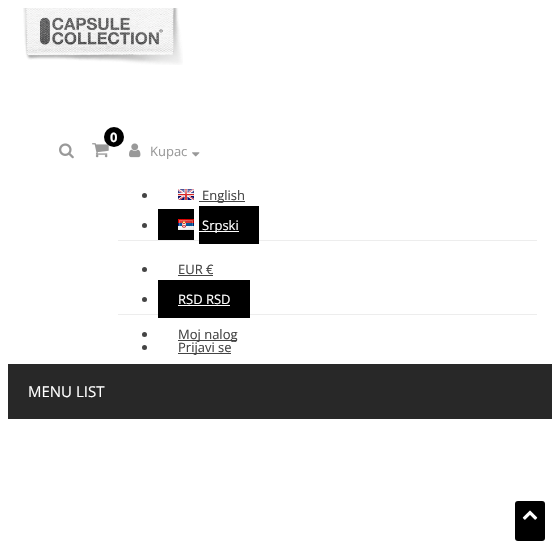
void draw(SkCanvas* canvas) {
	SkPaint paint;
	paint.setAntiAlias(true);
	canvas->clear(0xffffffff);
	canvas->drawImageRect(SkImages::DeferredFromEncodedData(SkData::MakeFromFileName("img1.png")), SkRect::MakeXYWH(23, 8, 160, 57), SkSamplingOptions());
	canvas->drawImageRect(SkImages::DeferredFromEncodedData(SkData::MakeFromFileName("img2.png")), SkRect::MakeXYWH(92, 143, 17, 15), SkSamplingOptions());
	paint.setColor(0xff000000);
	canvas->drawCircle(114, 137, 10, paint);
	SkFont f1(fontMgr->matchFamilyStyle("Open Sans", SkFontStyle::Bold()), 13);
	f1.setSubpixel(true);
	paint.setColor(0xffffffff);
	canvas->drawString("0", 110, 142, f1, paint);
	canvas->drawImageRect(SkImages::DeferredFromEncodedData(SkData::MakeFromFileName("img3.png")), SkRect::MakeXYWH(59, 143, 15, 16), SkSamplingOptions());
	canvas->drawImageRect(SkImages::DeferredFromEncodedData(SkData::MakeFromFileName("img4.png")), SkRect::MakeXYWH(129, 143, 12, 15), SkSamplingOptions());
	SkFont f2(fontMgr->matchFamilyStyle("Open Sans", SkFontStyle::Normal()), 13);
	f2.setSubpixel(true);
	paint.setColor(0xff999999);
	canvas->drawString("Kupac", 150, 156, f2, paint);
	canvas->drawImageRect(SkImages::DeferredFromEncodedData(SkData::MakeFromFileName("img5.png")), SkRect::MakeXYWH(192, 152, 8, 5), SkSamplingOptions());
	paint.setColor(0xffededed);
	canvas->drawRect(SkRect::MakeXYWH(118, 240, 419, 1), paint);
	paint.setColor(0xff444444);
	canvas->drawCircle(144.5, 195.5, 2.5, paint);
	canvas->drawImageRect(SkImages::DeferredFromEncodedData(SkData::MakeFromFileName("img6.png")), SkRect::MakeXYWH(178, 189, 16, 11), SkSamplingOptions());
	canvas->drawRect(SkRect::MakeXYWH(199, 201, 46, 1), paint);
	canvas->drawString("English", 202, 200, f2, paint);
	canvas->drawCircle(144.5, 225.5, 2.5, paint);
	paint.setColor(0xff000000);
	canvas->drawRect(SkRect::MakeXYWH(158, 209, 36, 31), paint);
	canvas->drawImageRect(SkImages::DeferredFromEncodedData(SkData::MakeFromFileName("img7.png")), SkRect::MakeXYWH(178, 219, 16, 11), SkSamplingOptions());
	canvas->drawRect(SkRect::MakeXYWH(199, 206, 60, 38), paint);
	paint.setColor(0xffffffff);
	canvas->drawRect(SkRect::MakeXYWH(199, 231, 40, 1), paint);
	canvas->drawString("Srpski", 202, 230, f2, paint);
	paint.setColor(0xffededed);
	canvas->drawRect(SkRect::MakeXYWH(118, 314, 419, 1), paint);
	paint.setColor(0xff444444);
	canvas->drawCircle(144.5, 269.5, 2.5, paint);
	canvas->drawString("EUR €", 178, 274, f2, paint);
	canvas->drawRect(SkRect::MakeXYWH(178, 275, 35, 1), paint);
	canvas->drawCircle(144.5, 299.5, 2.5, paint);
	paint.setColor(0xff000000);
	canvas->drawRect(SkRect::MakeXYWH(158, 280, 92, 38), paint);
	paint.setColor(0xffffffff);
	canvas->drawString("RSD RSD", 178, 304, f2, paint);
	canvas->drawRect(SkRect::MakeXYWH(178, 305, 52, 1), paint);
	paint.setColor(0xff444444);
	canvas->drawCircle(144.5, 334.5, 2.5, paint);
	canvas->drawRect(SkRect::MakeXYWH(178, 340, 59, 1), paint);
	canvas->drawString("Moj nalog", 178, 339, f2, paint);
	canvas->drawCircle(144.5, 347.5, 2.5, paint);
	canvas->drawRect(SkRect::MakeXYWH(178, 353, 53, 1), paint);
	canvas->drawString("Prijavi se", 178, 352, f2, paint);
	paint.setColor(0xff282828);
	canvas->drawRect(SkRect::MakeXYWH(8, 364, 544, 55), paint);
	SkFont f3(fontMgr->matchFamilyStyle("Open Sans", SkFontStyle::Normal()), 15);
	f3.setSubpixel(true);
	paint.setColor(0xffffffff);
	canvas->drawString("MENU LIST", 28, 397, f3, paint);
	paint.setColor(0xff000000);
	canvas->drawRoundRect(SkRect::MakeXYWH(515, 501, 30, 40), 3, 3, paint);
	canvas->drawImageRect(SkImages::DeferredFromEncodedData(SkData::MakeFromFileName("img8.png")), SkRect::MakeXYWH(522, 510, 16, 10), SkSamplingOptions());
}
